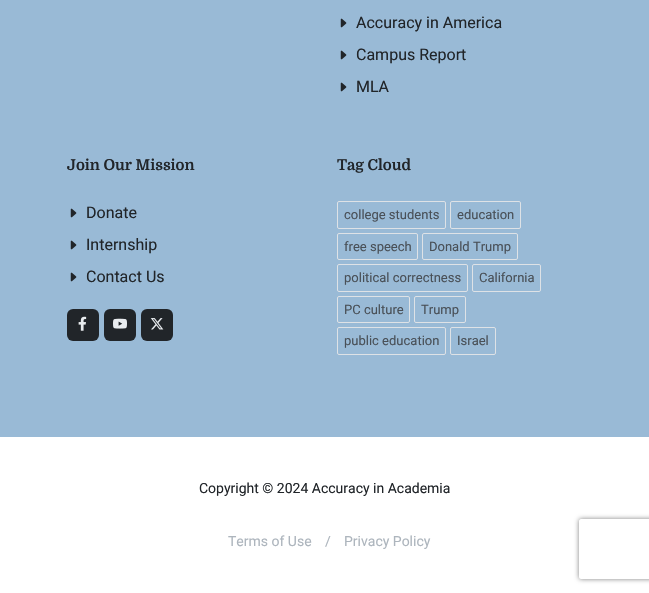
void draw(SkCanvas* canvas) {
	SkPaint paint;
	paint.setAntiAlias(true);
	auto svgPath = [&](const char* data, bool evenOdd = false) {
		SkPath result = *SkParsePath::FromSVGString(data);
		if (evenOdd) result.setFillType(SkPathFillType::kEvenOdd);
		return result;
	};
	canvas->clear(0xff99bad6);
	canvas->drawImageRect(SkImages::DeferredFromEncodedData(SkData::MakeFromFileName("img1.png")), SkRect::MakeXYWH(340, 18, 7, 10), SkSamplingOptions());
	SkFont f1(fontMgr->matchFamilyStyle("Roboto", SkFontStyle::Normal()), 16);
	f1.setSubpixel(true);
	paint.setColor(0xff212529);
	canvas->drawString("Accuracy in America", 356, 28, f1, paint);
	canvas->drawImageRect(SkImages::DeferredFromEncodedData(SkData::MakeFromFileName("img1.png")), SkRect::MakeXYWH(340, 50, 7, 10), SkSamplingOptions());
	canvas->drawString("Campus Report", 356, 60, f1, paint);
	canvas->drawImageRect(SkImages::DeferredFromEncodedData(SkData::MakeFromFileName("img1.png")), SkRect::MakeXYWH(340, 82, 7, 10), SkSamplingOptions());
	canvas->drawString("MLA", 356, 92, f1, paint);
	SkFont f2(fontMgr->matchFamilyStyle("Domine", SkFontStyle::Bold()), 15);
	f2.setSubpixel(true);
	canvas->drawString("Join Our Mission", 67, 170, f2, paint);
	canvas->drawImageRect(SkImages::DeferredFromEncodedData(SkData::MakeFromFileName("img1.png")), SkRect::MakeXYWH(70, 208, 7, 10), SkSamplingOptions());
	canvas->drawString("Donate", 86, 218, f1, paint);
	canvas->drawImageRect(SkImages::DeferredFromEncodedData(SkData::MakeFromFileName("img1.png")), SkRect::MakeXYWH(70, 240, 7, 10), SkSamplingOptions());
	canvas->drawString("Internship", 86, 250, f1, paint);
	canvas->drawImageRect(SkImages::DeferredFromEncodedData(SkData::MakeFromFileName("img1.png")), SkRect::MakeXYWH(70, 272, 7, 10), SkSamplingOptions());
	canvas->drawString("Contact Us", 86, 282, f1, paint);
	canvas->drawRoundRect(SkRect::MakeXYWH(67, 309, 32, 32), 6, 6, paint);
	canvas->drawImageRect(SkImages::DeferredFromEncodedData(SkData::MakeFromFileName("img2.png")), SkRect::MakeXYWH(78, 316, 9, 15), SkSamplingOptions());
	canvas->drawRoundRect(SkRect::MakeXYWH(104, 309, 32, 32), 6, 6, paint);
	canvas->drawImageRect(SkImages::DeferredFromEncodedData(SkData::MakeFromFileName("img3.png")), SkRect::MakeXYWH(113, 318, 14, 11), SkSamplingOptions());
	canvas->drawRoundRect(SkRect::MakeXYWH(141, 309, 32, 32), 6, 6, paint);
	canvas->drawImageRect(SkImages::DeferredFromEncodedData(SkData::MakeFromFileName("img4.png")), SkRect::MakeXYWH(150, 318, 14, 12), SkSamplingOptions());
	canvas->drawString("Tag Cloud", 337, 170, f2, paint);
	paint.setStroke(true);
	paint.setStrokeWidth(1);
	paint.setColor(0xffdee2e6);
	canvas->drawRoundRect(SkRect::MakeXYWH(337.5, 201.5, 108, 27), 1.5, 1.5, paint);
	SkFont f3(fontMgr->matchFamilyStyle("Roboto", SkFontStyle::Normal()), 13);
	f3.setSubpixel(true);
	paint.setStroke(false);
	paint.setColor(0xff495057);
	canvas->drawString("college students", 344, 219, f3, paint);
	paint.setStroke(true);
	paint.setColor(0xffdee2e6);
	canvas->drawRoundRect(SkRect::MakeXYWH(450.5, 201.5, 70, 27), 1.5, 1.5, paint);
	paint.setStroke(false);
	paint.setColor(0xff495057);
	canvas->drawString("education", 457, 219, f3, paint);
	paint.setStroke(true);
	paint.setColor(0xffdee2e6);
	canvas->drawRoundRect(SkRect::MakeXYWH(337.5, 233.5, 80, 26), 1.5, 1.5, paint);
	paint.setStroke(false);
	paint.setColor(0xff495057);
	canvas->drawString("free speech", 344, 251, f3, paint);
	paint.setStroke(true);
	paint.setColor(0xffdee2e6);
	canvas->drawRoundRect(SkRect::MakeXYWH(422.5, 233.5, 95, 26), 1.5, 1.5, paint);
	paint.setStroke(false);
	paint.setColor(0xff495057);
	canvas->drawString("Donald Trump", 429, 251, f3, paint);
	paint.setStroke(true);
	paint.setColor(0xffdee2e6);
	canvas->drawRoundRect(SkRect::MakeXYWH(337.5, 264.5, 130, 27), 1.5, 1.5, paint);
	paint.setStroke(false);
	paint.setColor(0xff495057);
	canvas->drawString("political correctness", 344, 282, f3, paint);
	paint.setStroke(true);
	paint.setColor(0xffdee2e6);
	canvas->drawRoundRect(SkRect::MakeXYWH(472.5, 264.5, 68, 27), 1.5, 1.5, paint);
	paint.setStroke(false);
	paint.setColor(0xff495057);
	canvas->drawString("California", 479, 282, f3, paint);
	paint.setStroke(true);
	paint.setColor(0xffdee2e6);
	canvas->drawRoundRect(SkRect::MakeXYWH(337.5, 296.5, 72, 26), 1.5, 1.5, paint);
	paint.setStroke(false);
	paint.setColor(0xff495057);
	canvas->drawString("PC culture", 344, 314, f3, paint);
	paint.setStroke(true);
	paint.setColor(0xffdee2e6);
	canvas->drawRoundRect(SkRect::MakeXYWH(414.5, 296.5, 51, 26), 1.5, 1.5, paint);
	paint.setStroke(false);
	paint.setColor(0xff495057);
	canvas->drawString("Trump", 421, 314, f3, paint);
	paint.setStroke(true);
	paint.setColor(0xffdee2e6);
	canvas->drawRoundRect(SkRect::MakeXYWH(337.5, 327.5, 108, 27), 1.5, 1.5, paint);
	paint.setStroke(false);
	paint.setColor(0xff495057);
	canvas->drawString("public education", 344, 345, f3, paint);
	paint.setStroke(true);
	paint.setColor(0xffdee2e6);
	canvas->drawRoundRect(SkRect::MakeXYWH(450.5, 327.5, 45, 27), 1.5, 1.5, paint);
	paint.setStroke(false);
	paint.setColor(0xff495057);
	canvas->drawString("Israel", 457, 345, f3, paint);
	paint.setColor(0xffffffff);
	canvas->drawRect(SkRect::MakeXYWH(0, 437, 649, 156), paint);
	SkFont f4(fontMgr->matchFamilyStyle("Roboto", SkFontStyle::Normal()), 14);
	f4.setSubpixel(true);
	paint.setColor(0xff212529);
	canvas->drawString("Copyright © 2024 Accuracy in Academia", 199, 493, f4, paint);
	paint.setColor(0xffadb5bd);
	canvas->drawString("Terms of Use", 228, 546, f4, paint);
	canvas->drawString("/", 325, 546, f4, paint);
	canvas->drawString("Privacy Policy", 344, 546, f4, paint);
	canvas->save();
	canvas->clipPath(svgPath("M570 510H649V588H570ZM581 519H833C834 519 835 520 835 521V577C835 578 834 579 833 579H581C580 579 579 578 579 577V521C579 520 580 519 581 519Z", true), true);
	paint.setColor(0xff808080);
	paint.setMaskFilter(SkMaskFilter::MakeBlur(kNormal_SkBlurStyle, 2.5));
	canvas->drawRoundRect(SkRect::MakeXYWH(579, 519, 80, 60), 2, 2, paint);
	paint.setMaskFilter(nullptr);
	canvas->restore();
}
